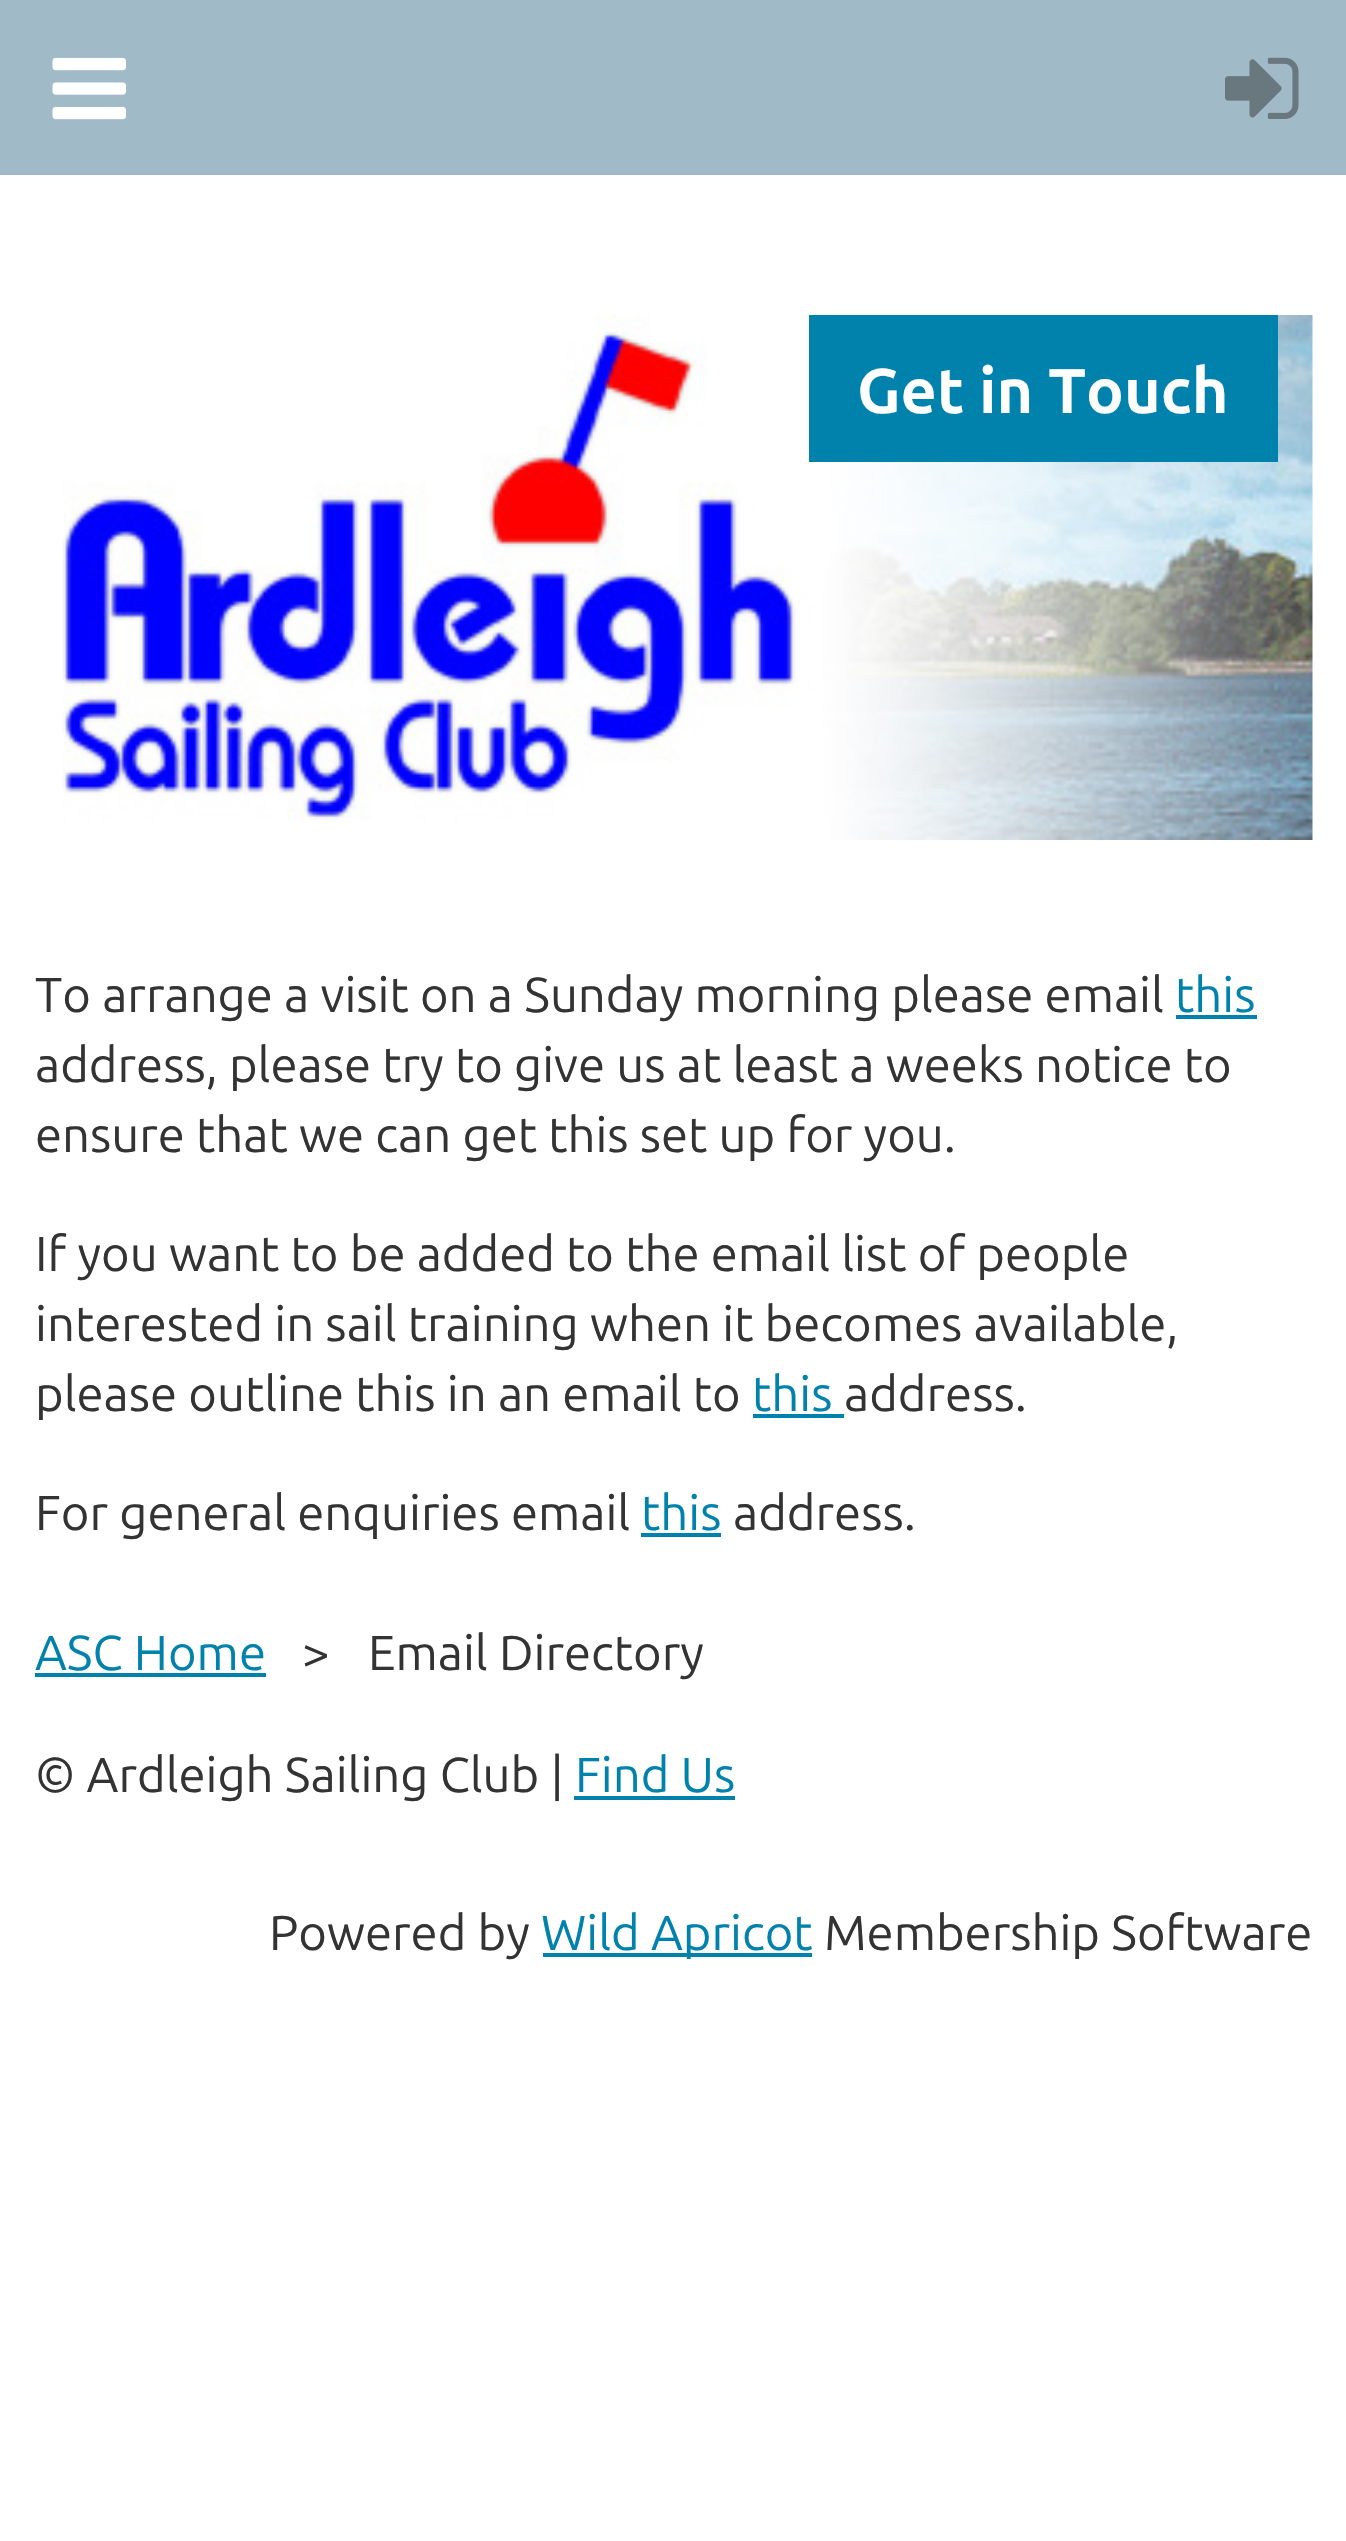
void draw(SkCanvas* canvas) {
	SkPaint paint;
	paint.setAntiAlias(true);
	canvas->clear(0xffffffff);
	paint.setColor(0xffa0bac7);
	canvas->drawRect(SkRect::MakeXYWH(0, 0, 1346, 175), paint);
	canvas->drawImageRect(SkImages::DeferredFromEncodedData(SkData::MakeFromFileName("img1.png")), SkRect::MakeXYWH(52, 57, 74, 63), SkSamplingOptions());
	canvas->drawImageRect(SkImages::DeferredFromEncodedData(SkData::MakeFromFileName("img2.png")), SkRect::MakeXYWH(1225, 57, 74, 62), SkSamplingOptions());
	canvas->drawImageRect(SkImages::DeferredFromEncodedData(SkData::MakeFromFileName("img3.png")), SkRect::MakeXYWH(62, 315, 1251, 525), SkSamplingOptions());
	paint.setColor(0xff0082ac);
	canvas->drawRect(SkRect::MakeXYWH(809, 315, 469, 147), paint);
	SkFont f1(fontMgr->matchFamilyStyle("Ubuntu", SkFontStyle::Bold()), 63);
	f1.setSubpixel(true);
	paint.setColor(0xffffffff);
	canvas->drawString("Get in Touch", 857, 413, f1, paint);
	SkFont f2(fontMgr->matchFamilyStyle("Ubuntu", SkFontStyle::Normal()), 49);
	f2.setSubpixel(true);
	paint.setColor(0xff333333);
	canvas->drawString("To arrange a visit on a Sunday morning please email", 35, 1012, f2, paint);
	paint.setColor(0xff0082ac);
	canvas->drawString("this", 1175, 1012, f2, paint);
	canvas->drawRect(SkRect::MakeXYWH(1176, 1015, 81, 4), paint);
	paint.setColor(0xff333333);
	canvas->drawString("address, please try to give us at least a weeks notice to", 35, 1082, f2, paint);
	canvas->drawString("ensure that we can get this set up for you.", 35, 1152, f2, paint);
	canvas->drawString("If you want to be added to the email list of people", 35, 1271, f2, paint);
	canvas->drawString("interested in sail training when it becomes available,", 35, 1341, f2, paint);
	canvas->drawString("please outline this in an email to", 35, 1411, f2, paint);
	paint.setColor(0xff0082ac);
	canvas->drawString("this", 752, 1411, f2, paint);
	canvas->drawRect(SkRect::MakeXYWH(753, 1414, 91, 4), paint);
	paint.setColor(0xff333333);
	canvas->drawString("address.", 844, 1411, f2, paint);
	canvas->drawString("For general enquiries email", 35, 1530, f2, paint);
	paint.setColor(0xff0082ac);
	canvas->drawString("this", 641, 1530, f2, paint);
	canvas->drawRect(SkRect::MakeXYWH(641, 1533, 80, 4), paint);
	paint.setColor(0xff333333);
	canvas->drawString("address.", 733, 1530, f2, paint);
	paint.setColor(0xff0082ac);
	canvas->drawString("ASC Home", 35, 1670, f2, paint);
	canvas->drawRect(SkRect::MakeXYWH(35, 1673, 231, 4), paint);
	paint.setColor(0xff333333);
	canvas->drawString(">", 302, 1670, f2, paint);
	canvas->drawString("Email Directory", 368, 1670, f2, paint);
	canvas->drawString("© Ardleigh Sailing Club |", 35, 1792, f2, paint);
	paint.setColor(0xff0082ac);
	canvas->drawString("Find Us", 575, 1792, f2, paint);
	canvas->drawRect(SkRect::MakeXYWH(574, 1796, 161, 4), paint);
	paint.setColor(0xff333333);
	canvas->drawString("Powered by", 269, 1950, f2, paint);
	paint.setColor(0xff0082ac);
	canvas->drawRect(SkRect::MakeXYWH(543, 1953, 269, 4), paint);
	canvas->drawString("Wild Apricot", 541, 1950, f2, paint);
	paint.setColor(0xff333333);
	canvas->drawString("Membership Software", 824, 1950, f2, paint);
}
